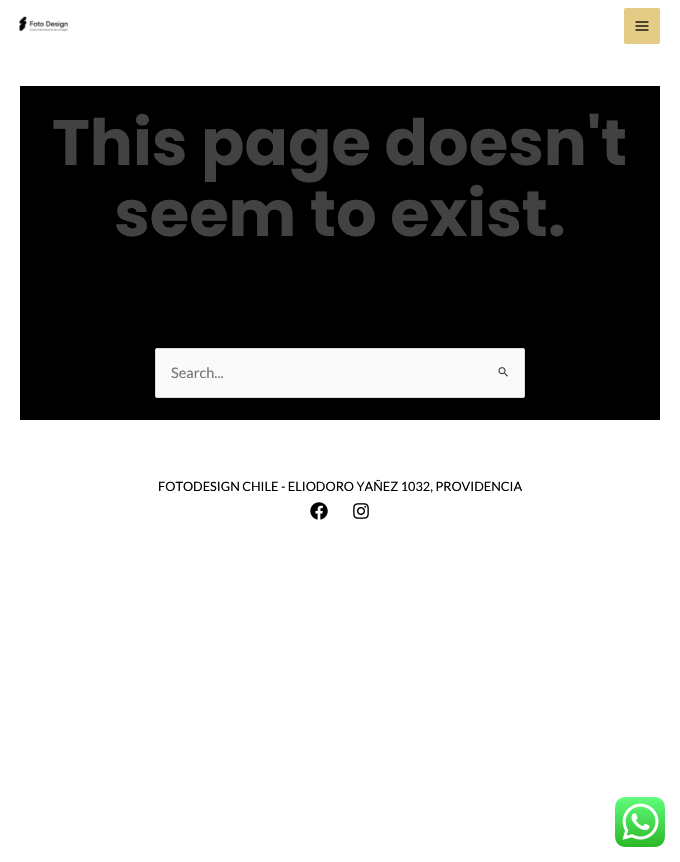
void draw(SkCanvas* canvas) {
	SkPaint paint;
	paint.setAntiAlias(true);
	canvas->clear(0xffffffff);
	canvas->drawImageRect(SkImages::DeferredFromEncodedData(SkData::MakeFromFileName("img1.png")), SkRect::MakeXYWH(19, 16, 50, 16), SkSamplingOptions());
	paint.setColor(0xffe4cb86);
	canvas->drawRoundRect(SkRect::MakeXYWH(624, 8, 36, 36), 2, 2, paint);
	canvas->drawImageRect(SkImages::DeferredFromEncodedData(SkData::MakeFromFileName("img2.png")), SkRect::MakeXYWH(635, 21, 14, 10), SkSamplingOptions());
	paint.setColor(0xff000000);
	canvas->drawRect(SkRect::MakeXYWH(20, 86, 640, 334), paint);
	SkFont f1(fontMgr->matchFamilyStyle("Poppins", SkFontStyle::Bold()), 64);
	f1.setSubpixel(true);
	paint.setColor(0xff424242);
	canvas->drawString("This page doesn't", 52, 165, f1, paint);
	canvas->drawString("seem to exist.", 114, 236, f1, paint);
	paint.setColor(0xfffafafa);
	canvas->drawRoundRect(SkRect::MakeXYWH(155.5, 348.5, 369, 49), 1.5, 1.5, paint);
	paint.setStroke(true);
	paint.setStrokeWidth(1);
	paint.setColor(0xffdddddd);
	canvas->drawRoundRect(SkRect::MakeXYWH(155.5, 348.5, 369, 49), 1.5, 1.5, paint);
	SkFont f2(fontMgr->matchFamilyStyle("Lato", SkFontStyle::Normal()), 14.5);
	f2.setSubpixel(true);
	paint.setStroke(false);
	paint.setColor(0xff757575);
	canvas->drawString("Search...", 171, 378, f2, paint);
	canvas->drawImageRect(SkImages::DeferredFromEncodedData(SkData::MakeFromFileName("img3.png")), SkRect::MakeXYWH(498, 367, 10, 10), SkSamplingOptions());
	SkFont f3(fontMgr->matchFamilyStyle("Lato", SkFontStyle::Normal()), 12.75);
	f3.setSubpixel(true);
	paint.setColor(0xff000000);
	canvas->drawString("FOTODESIGN CHILE - ELIODORO YAÑEZ 1032, PROVIDENCIA", 158, 491, f3, paint);
	canvas->drawImageRect(SkImages::DeferredFromEncodedData(SkData::MakeFromFileName("img4.png")), SkRect::MakeXYWH(310, 502, 18, 18), SkSamplingOptions());
	canvas->drawImageRect(SkImages::DeferredFromEncodedData(SkData::MakeFromFileName("img5.png")), SkRect::MakeXYWH(353, 503, 16, 16), SkSamplingOptions());
	canvas->drawImageRect(SkImages::DeferredFromEncodedData(SkData::MakeFromFileName("img6.png")), SkRect::MakeXYWH(615, 797, 50, 50), SkSamplingOptions());
}
